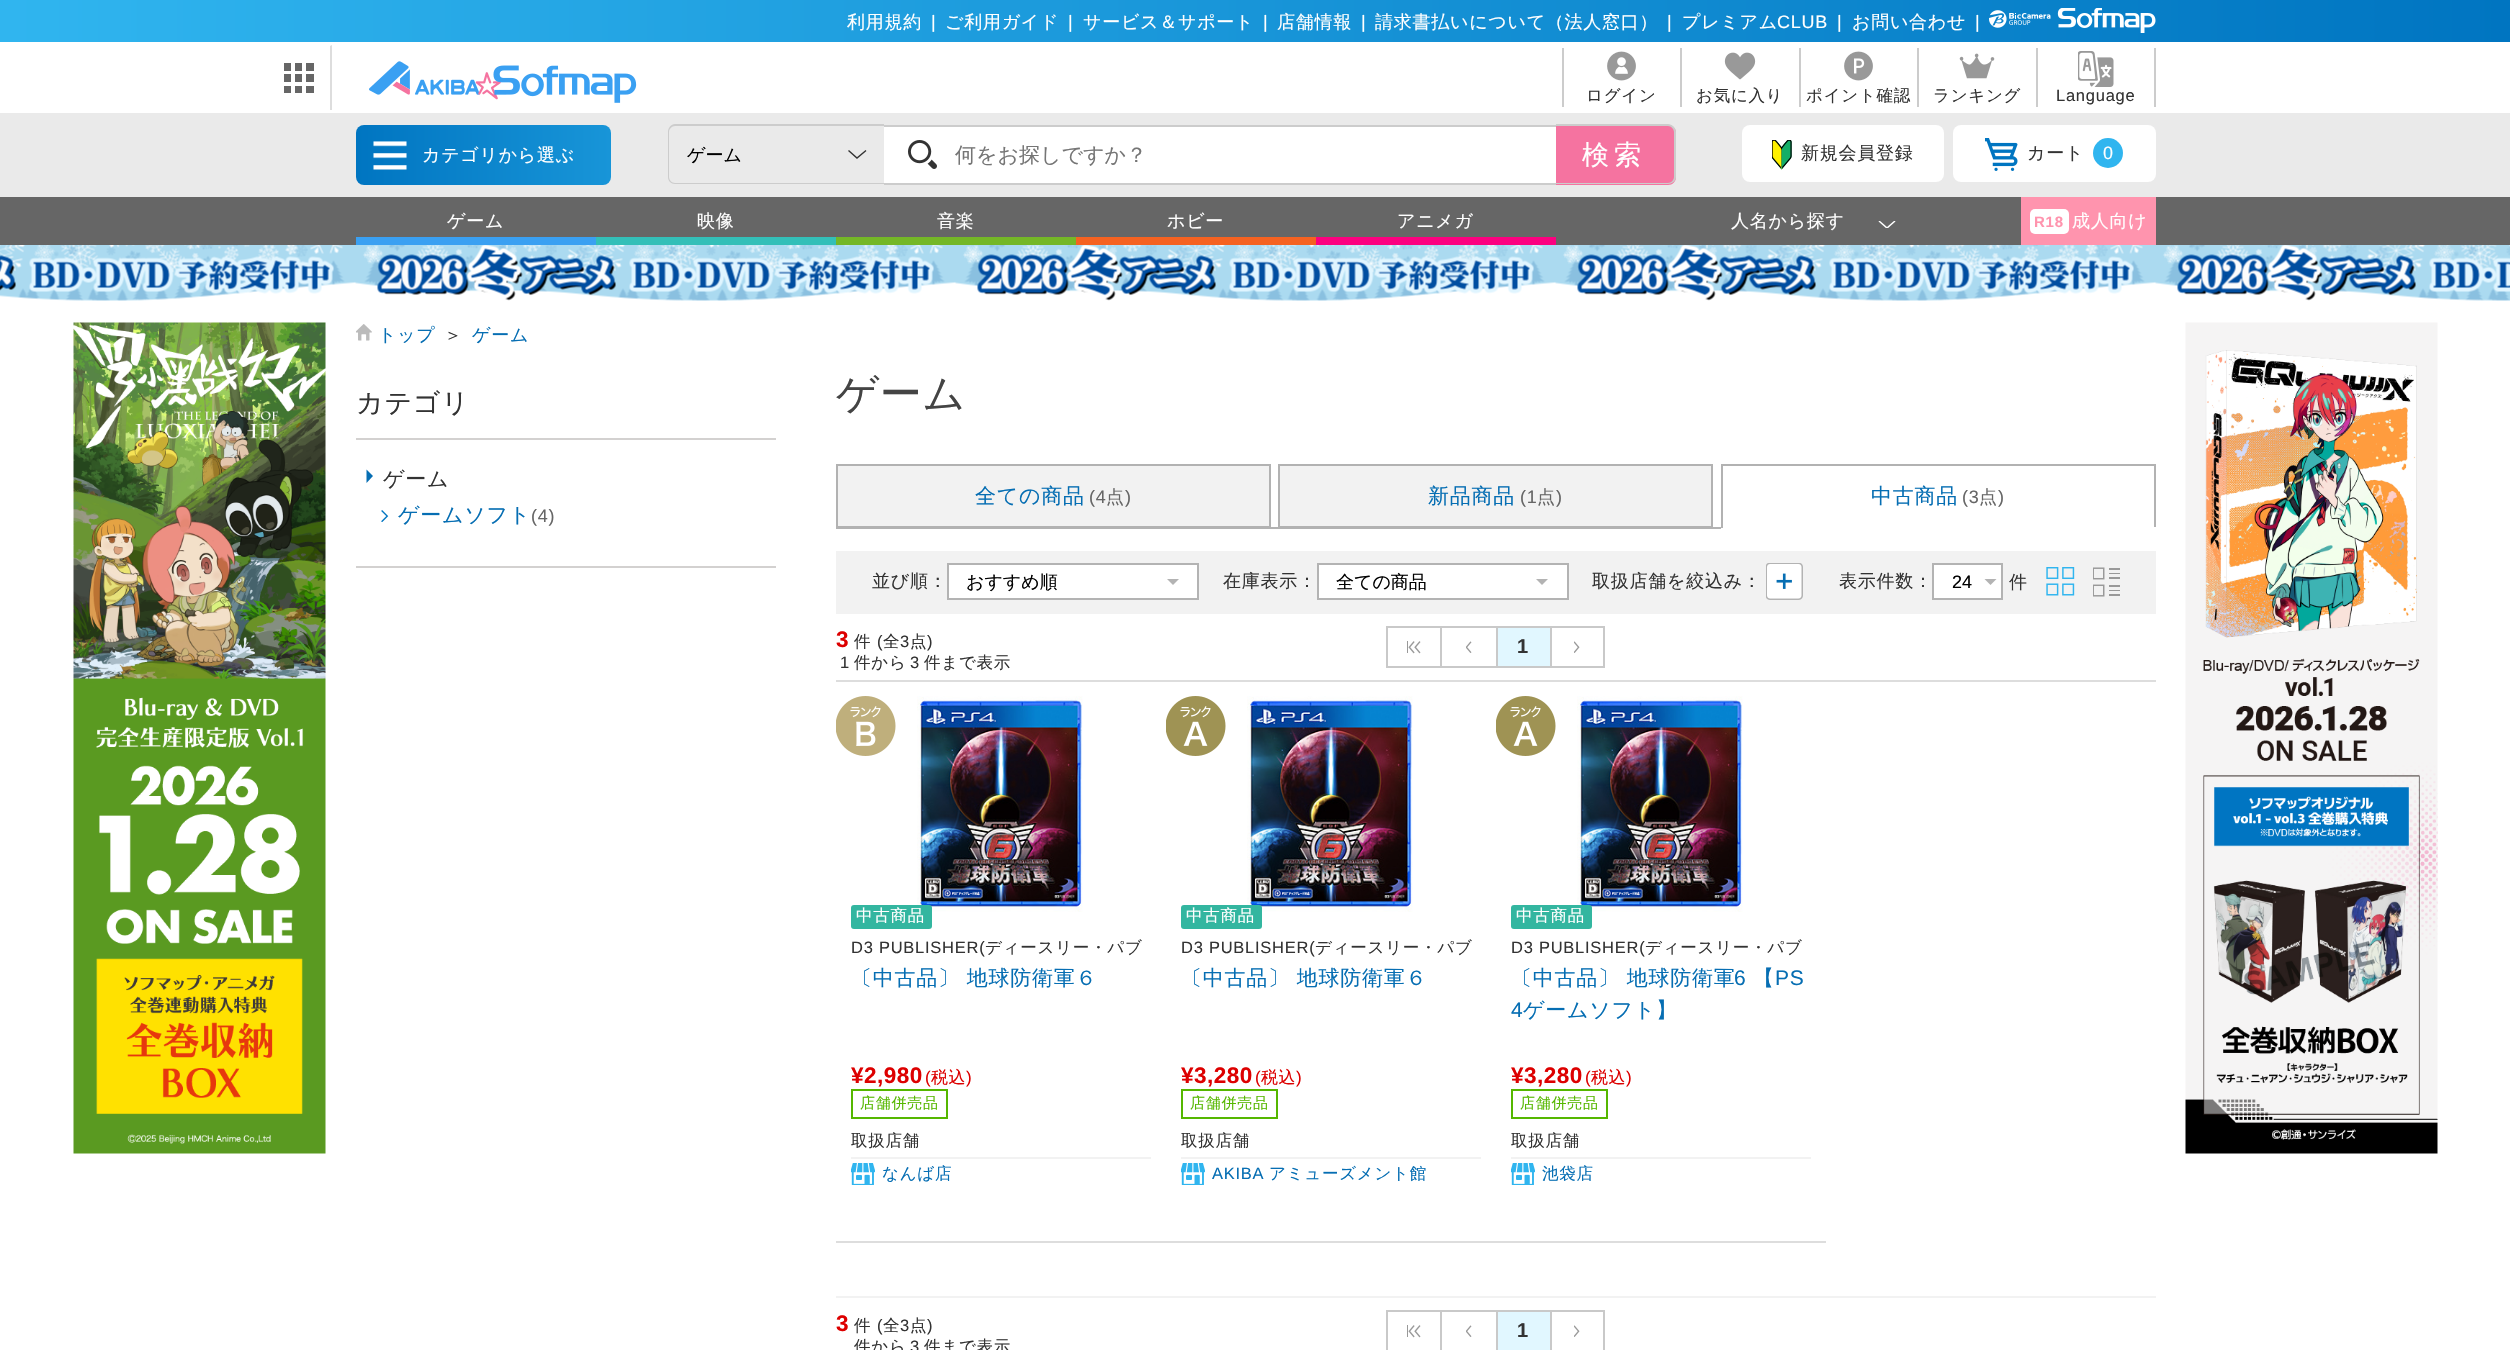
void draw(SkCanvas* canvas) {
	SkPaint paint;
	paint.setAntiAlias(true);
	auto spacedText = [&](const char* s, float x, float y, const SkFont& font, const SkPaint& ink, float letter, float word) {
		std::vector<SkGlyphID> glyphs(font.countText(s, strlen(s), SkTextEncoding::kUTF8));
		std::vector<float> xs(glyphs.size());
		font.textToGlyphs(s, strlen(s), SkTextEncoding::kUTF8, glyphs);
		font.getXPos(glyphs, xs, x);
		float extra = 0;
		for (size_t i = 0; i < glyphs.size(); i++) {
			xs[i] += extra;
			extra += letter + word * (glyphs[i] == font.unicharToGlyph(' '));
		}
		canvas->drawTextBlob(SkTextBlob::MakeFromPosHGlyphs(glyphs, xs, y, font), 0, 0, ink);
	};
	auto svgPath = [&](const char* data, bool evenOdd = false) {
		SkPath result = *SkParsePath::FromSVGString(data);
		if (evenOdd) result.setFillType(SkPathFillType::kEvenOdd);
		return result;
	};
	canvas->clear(0xffffffff);
	{
		const SkColor colors[] = {0xff30b5ef, 0xff0075c1};
		const float stops[] = {0, 1};
		const SkPoint ends[] = {{0, 21}, {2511, 21}};
		paint.setShader(SkGradientShader::MakeLinear(ends, colors, stops, 2, SkTileMode::kClamp));
		paint.setAlpha(255);
	}
	canvas->drawRect(SkRect::MakeXYWH(0, 0, 2510, 42), paint);
	SkFont f1(fontMgr->matchFamilyStyle("WenQuanYi Zen Hei", SkFontStyle(500, SkFontStyle::kNormal_Width, SkFontStyle::kUpright_Slant)), 18);
	f1.setSubpixel(true);
	paint.setShader(nullptr);
	paint.setColor(0xffffffff);
	spacedText("利用規約", 847, 28, f1, paint, 0.75, 0);
	SkFont f2(fontMgr->matchFamilyStyle("Liberation Sans", SkFontStyle::Normal()), 18);
	f2.setSubpixel(true);
	spacedText("|", 931, 28, f2, paint, 0.75, 0);
	spacedText("ご利用ガイド", 945, 28, f1, paint, 0.75, 0);
	spacedText("|", 1068, 28, f2, paint, 0.75, 0);
	spacedText("サービス＆サポート", 1083, 28, f1, paint, 0.75, 0);
	spacedText("|", 1263, 28, f2, paint, 0.75, 0);
	spacedText("店舗情報", 1277, 28, f1, paint, 0.75, 0);
	spacedText("|", 1361, 28, f2, paint, 0.75, 0);
	spacedText("請求書払いについて（法人窓口）", 1375, 28, f1, paint, 0.75, 0);
	spacedText("|", 1667, 28, f2, paint, 0.75, 0);
	spacedText("プレミアム", 1682, 28, f1, paint, 0.75, 0);
	spacedText("CLUB", 1777, 28, f2, paint, 0.75, 0);
	spacedText("|", 1837, 28, f2, paint, 0.75, 0);
	spacedText("お問い合わせ", 1852, 28, f1, paint, 0.75, 0);
	spacedText("|", 1975, 28, f2, paint, 0.75, 0);
	canvas->drawImageRect(SkImages::DeferredFromEncodedData(SkData::MakeFromFileName("img1.png")), SkRect::MakeXYWH(1989, 8, 167, 25), SkSamplingOptions());
	paint.setColor(0xffdddddd);
	canvas->drawPath(svgPath("M332 45V110H330V46Z"), paint);
	canvas->drawImageRect(SkImages::DeferredFromEncodedData(SkData::MakeFromFileName("img2.png")), SkRect::MakeXYWH(284, 63, 30, 30), SkSamplingOptions());
	canvas->drawImageRect(SkImages::DeferredFromEncodedData(SkData::MakeFromFileName("img3.png")), SkRect::MakeXYWH(369, 61, 268, 42), SkSamplingOptions());
	paint.setColor(0xffcccccc);
	canvas->drawRect(SkRect::MakeXYWH(2154, 48, 2, 59), paint);
	canvas->drawRect(SkRect::MakeXYWH(1562, 48, 2, 59), paint);
	canvas->drawImageRect(SkImages::DeferredFromEncodedData(SkData::MakeFromFileName("img4.png")), SkRect::MakeXYWH(1607, 51, 29, 30), SkSamplingOptions());
	SkFont f3(fontMgr->matchFamilyStyle("WenQuanYi Zen Hei", SkFontStyle(500, SkFontStyle::kNormal_Width, SkFontStyle::kUpright_Slant)), 16.5);
	f3.setSubpixel(true);
	paint.setColor(0xff333333);
	spacedText("ログイン", 1586, 101, f3, paint, 0.75, 0);
	paint.setColor(0xffcccccc);
	canvas->drawRect(SkRect::MakeXYWH(1680, 48, 2, 59), paint);
	canvas->drawImageRect(SkImages::DeferredFromEncodedData(SkData::MakeFromFileName("img5.png")), SkRect::MakeXYWH(1724, 52, 32, 28), SkSamplingOptions());
	paint.setColor(0xff333333);
	spacedText("お気に入り", 1696, 101, f3, paint, 0.75, 0);
	paint.setColor(0xffcccccc);
	canvas->drawRect(SkRect::MakeXYWH(1799, 48, 2, 59), paint);
	canvas->drawImageRect(SkImages::DeferredFromEncodedData(SkData::MakeFromFileName("img6.png")), SkRect::MakeXYWH(1844, 51, 29, 30), SkSamplingOptions());
	paint.setColor(0xff333333);
	spacedText("ポイント確認", 1806, 101, f3, paint, 0.75, 0);
	paint.setColor(0xffcccccc);
	canvas->drawRect(SkRect::MakeXYWH(1917, 48, 2, 59), paint);
	canvas->drawImageRect(SkImages::DeferredFromEncodedData(SkData::MakeFromFileName("img7.png")), SkRect::MakeXYWH(1959, 53, 36, 26), SkSamplingOptions());
	paint.setColor(0xff333333);
	spacedText("ランキング", 1933, 101, f3, paint, 0.75, 0);
	paint.setColor(0xffcccccc);
	canvas->drawRect(SkRect::MakeXYWH(2036, 48, 2, 59), paint);
	canvas->drawImageRect(SkImages::DeferredFromEncodedData(SkData::MakeFromFileName("img8.png")), SkRect::MakeXYWH(2078, 51, 36, 36), SkSamplingOptions());
	SkFont f4(fontMgr->matchFamilyStyle("Liberation Sans", SkFontStyle::Normal()), 16.5);
	f4.setSubpixel(true);
	paint.setColor(0xff333333);
	spacedText("Language", 2056, 101, f4, paint, 0.75, 0);
	paint.setColor(0xffeaeaea);
	canvas->drawRect(SkRect::MakeXYWH(0, 113, 2510, 84), paint);
	{
		const SkColor colors[] = {0xff1895d8, 0xff0075c1};
		const float stops[] = {0, 1};
		const SkPoint ends[] = {{611, 155}, {356, 155}};
		paint.setShader(SkGradientShader::MakeLinear(ends, colors, stops, 2, SkTileMode::kClamp));
		paint.setAlpha(255);
	}
	canvas->drawRoundRect(SkRect::MakeXYWH(356, 125, 255, 60), 8, 8, paint);
	canvas->drawImageRect(SkImages::DeferredFromEncodedData(SkData::MakeFromFileName("img9.png")), SkRect::MakeXYWH(373, 141, 34, 29), SkSamplingOptions());
	paint.setShader(nullptr);
	paint.setColor(0xffffffff);
	spacedText("カテゴリから選ぶ", 422, 161, f1, paint, 0.75, 0);
	paint.setStroke(true);
	paint.setStrokeWidth(1.4);
	paint.setColor(0xff333333);
	canvas->drawPath(svgPath("M866 150.5L857 158L848.5 150.5"), paint);
	paint.setStroke(false);
	paint.setColor(0xffcccccc);
	canvas->drawPath(svgPath("M675 124H884V184H675C671 184 668 181 668 177V132C668 128 671 124 675 124ZM675 126H884V183H675C672 183 669 180 669 177V132C669 129 672 126 675 126Z", true), paint);
	paint.setColor(0xff000000);
	canvas->drawString("ゲーム", 687, 161, f1, paint);
	paint.setColor(0xffffffff);
	canvas->drawRect(SkRect::MakeXYWH(884, 127, 672, 56), paint);
	canvas->drawImageRect(SkImages::DeferredFromEncodedData(SkData::MakeFromFileName("img10.png")), SkRect::MakeXYWH(908, 140, 29, 29), SkSamplingOptions());
	paint.setColor(0xffcccccc);
	canvas->drawRect(SkRect::MakeXYWH(884, 125, 672, 2), paint);
	canvas->drawRect(SkRect::MakeXYWH(884, 183, 672, 2), paint);
	SkFont f5(fontMgr->matchFamilyStyle("WenQuanYi Zen Hei", SkFontStyle(500, SkFontStyle::kNormal_Width, SkFontStyle::kUpright_Slant)), 21);
	f5.setSubpixel(true);
	paint.setColor(0xff757575);
	canvas->drawString("何をお探しですか？", 955, 162, f5, paint);
	paint.setColor(0xfff573a0);
	canvas->drawPath(svgPath("M1556 125H1668C1672.5 125 1676 128.5 1676 133V177C1676 181.5 1672.5 185 1668 185H1556Z"), paint);
	paint.setColor(0xffcccccc);
	canvas->drawPath(svgPath("M1556 124H1668C1672 124 1676 128 1676 132V177C1676 181 1672 184 1668 184H1556ZM1556 126H1668C1671 126 1674 129 1674 132V177C1674 180 1671 183 1668 183H1556Z", true), paint);
	SkFont f6(fontMgr->matchFamilyStyle("WenQuanYi Zen Hei", SkFontStyle(500, SkFontStyle::kNormal_Width, SkFontStyle::kUpright_Slant)), 27);
	f6.setSubpixel(true);
	paint.setColor(0xffffffff);
	spacedText("検索", 1582, 164, f6, paint, 5, 0);
	canvas->drawRoundRect(SkRect::MakeXYWH(1742, 125, 202, 57), 8, 8, paint);
	canvas->drawImageRect(SkImages::DeferredFromEncodedData(SkData::MakeFromFileName("img11.png")), SkRect::MakeXYWH(1772, 140, 20, 30), SkSamplingOptions());
	paint.setColor(0xff333333);
	spacedText("新規会員登録", 1801, 159, f1, paint, 0.75, 0);
	paint.setColor(0xffffffff);
	canvas->drawRoundRect(SkRect::MakeXYWH(1953, 125, 203, 57), 8, 8, paint);
	canvas->drawImageRect(SkImages::DeferredFromEncodedData(SkData::MakeFromFileName("img12.png")), SkRect::MakeXYWH(1985, 138, 33, 33), SkSamplingOptions());
	paint.setColor(0xff333333);
	spacedText("カート", 2027, 159, f1, paint, 0.75, 0);
	paint.setColor(0xff30b5ef);
	canvas->drawCircle(2108, 153, 15, paint);
	paint.setColor(0xffffffff);
	spacedText("0", 2103, 159, f2, paint, 0.75, 0);
	paint.setColor(0xff666666);
	canvas->drawRect(SkRect::MakeXYWH(0, 197, 2510, 48), paint);
	paint.setColor(0xff3aa0f2);
	canvas->drawRect(SkRect::MakeXYWH(356, 237, 240, 8), paint);
	paint.setColor(0xffffffff);
	spacedText("ゲーム", 447, 227, f1, paint, 0.75, 0);
	paint.setColor(0xff33bfb8);
	canvas->drawRect(SkRect::MakeXYWH(596, 237, 240, 8), paint);
	paint.setColor(0xffffffff);
	spacedText("映像", 697, 227, f1, paint, 0.75, 0);
	paint.setColor(0xff74b727);
	canvas->drawRect(SkRect::MakeXYWH(836, 237, 240, 8), paint);
	paint.setColor(0xffffffff);
	spacedText("音楽", 937, 227, f1, paint, 0.75, 0);
	paint.setColor(0xfff56221);
	canvas->drawRect(SkRect::MakeXYWH(1076, 237, 240, 8), paint);
	paint.setColor(0xffffffff);
	spacedText("ホビー", 1167, 227, f1, paint, 0.75, 0);
	paint.setColor(0xfffc0080);
	canvas->drawRect(SkRect::MakeXYWH(1316, 237, 240, 8), paint);
	paint.setColor(0xffffffff);
	spacedText("アニメガ", 1397, 227, f1, paint, 0.75, 0);
	canvas->save();
	canvas->clipRect(SkRect::MakeXYWH(1878, 221, 18, 7));
	canvas->drawPath(svgPath("M1887 229L1878.5 221.5L1879.5 220.5L1887 227L1894.5 220.5L1895.5 221.5Z"), paint);
	canvas->restore();
	spacedText("人名から探す", 1731, 227, f1, paint, 0.75, 0);
	paint.setColor(0xffff94ae);
	canvas->drawRect(SkRect::MakeXYWH(2021, 197, 135, 48), paint);
	paint.setColor(0xffffffff);
	canvas->drawRoundRect(SkRect::MakeXYWH(2030, 209, 39, 25), 5, 5, paint);
	SkFont f7(fontMgr->matchFamilyStyle("Liberation Sans", SkFontStyle::Bold()), 15);
	f7.setSubpixel(true);
	paint.setColor(0xffff94ae);
	spacedText("R18", 2034, 227, f7, paint, 0.75, 0);
	paint.setColor(0xffffffff);
	spacedText("成人向け", 2072, 227, f1, paint, 0.75, 0);
	canvas->drawImageRect(SkImages::DeferredFromEncodedData(SkData::MakeFromFileName("img13.png")), SkRect::MakeXYWH(0, 245, 2510, 56), SkSamplingOptions());
	canvas->drawImageRect(SkImages::DeferredFromEncodedData(SkData::MakeFromFileName("img14.png")), SkRect::MakeXYWH(73, 322, 253, 832), SkSamplingOptions());
	canvas->drawImageRect(SkImages::DeferredFromEncodedData(SkData::MakeFromFileName("img15.png")), SkRect::MakeXYWH(2185, 322, 253, 832), SkSamplingOptions());
	canvas->drawImageRect(SkImages::DeferredFromEncodedData(SkData::MakeFromFileName("img16.png")), SkRect::MakeXYWH(356, 324, 16, 17), SkSamplingOptions());
	paint.setColor(0xff066eb3);
	spacedText("トップ", 378, 341, f1, paint, 0.75, 0);
	paint.setColor(0xff333333);
	spacedText("＞", 444, 341, f1, paint, 0.75, 0);
	paint.setColor(0xff066eb3);
	spacedText("ゲーム", 472, 341, f1, paint, 0.75, 0);
	paint.setColor(0xffd3d1d0);
	canvas->drawRect(SkRect::MakeXYWH(356, 438, 420, 2), paint);
	paint.setColor(0xff333333);
	spacedText("カテゴリ", 356, 412, f6, paint, 0.75, 0);
	paint.setColor(0xffd3d1d0);
	canvas->drawRect(SkRect::MakeXYWH(356, 566, 420, 2), paint);
	paint.setColor(0xff066eb3);
	canvas->drawPath(svgPath("M373 476L366.5 483V469.5Z"), paint);
	paint.setColor(0xff333333);
	spacedText("ゲーム", 383, 486, f5, paint, 0.75, 0);
	canvas->drawImageRect(SkImages::DeferredFromEncodedData(SkData::MakeFromFileName("img17.png")), SkRect::MakeXYWH(381, 510, 8, 12), SkSamplingOptions());
	paint.setColor(0xff066eb3);
	spacedText("ゲームソフト", 398, 522, f5, paint, 0.75, 0);
	paint.setColor(0xff666666);
	spacedText("(4)", 531, 522, f2, paint, 0.75, 0);
	SkFont f8(fontMgr->matchFamilyStyle("WenQuanYi Zen Hei", SkFontStyle(500, SkFontStyle::kNormal_Width, SkFontStyle::kUpright_Slant)), 42);
	f8.setSubpixel(true);
	paint.setColor(0xff444444);
	spacedText("ゲーム", 836, 408, f8, paint, 0.75, 0);
	paint.setColor(0xffb2b2b2);
	canvas->drawRect(SkRect::MakeXYWH(836, 527, 885, 2), paint);
	paint.setColor(0xfff2f2f2);
	canvas->drawRect(SkRect::MakeXYWH(837, 465, 433, 62), paint);
	paint.setStroke(true);
	paint.setStrokeWidth(2);
	paint.setColor(0xffb2b2b2);
	canvas->drawRect(SkRect::MakeXYWH(837, 465, 433, 62), paint);
	paint.setStroke(false);
	paint.setColor(0xff066eb3);
	spacedText("全ての商品", 975, 503, f5, paint, 0.75, 0);
	paint.setColor(0xff666666);
	spacedText("(4", 1089, 503, f2, paint, 0.75, 0);
	spacedText("点", 1106, 503, f1, paint, 0.75, 0);
	spacedText(")", 1125, 503, f2, paint, 0.75, 0);
	paint.setColor(0xfff2f2f2);
	canvas->drawRect(SkRect::MakeXYWH(1279, 465, 433, 62), paint);
	paint.setStroke(true);
	paint.setColor(0xffb2b2b2);
	canvas->drawRect(SkRect::MakeXYWH(1279, 465, 433, 62), paint);
	paint.setStroke(false);
	paint.setColor(0xff066eb3);
	spacedText("新品商品", 1428, 503, f5, paint, 0.75, 0);
	paint.setColor(0xff666666);
	spacedText("(1", 1520, 503, f2, paint, 0.75, 0);
	spacedText("点", 1537, 503, f1, paint, 0.75, 0);
	spacedText(")", 1556, 503, f2, paint, 0.75, 0);
	paint.setColor(0xffb2b2b2);
	canvas->drawRect(SkRect::MakeXYWH(1721, 464, 435, 2), paint);
	canvas->drawRect(SkRect::MakeXYWH(2154, 464, 2, 64), paint);
	paint.setColor(0xffffffff);
	canvas->drawRect(SkRect::MakeXYWH(2154, 527, 2, 1), paint);
	paint.setColor(0xffb2b2b2);
	canvas->drawRect(SkRect::MakeXYWH(1721, 464, 2, 64), paint);
	paint.setColor(0xff066eb3);
	spacedText("中古商品", 1871, 503, f5, paint, 0.75, 0);
	paint.setColor(0xff666666);
	spacedText("(3", 1962, 503, f2, paint, 0.75, 0);
	spacedText("点", 1979, 503, f1, paint, 0.75, 0);
	spacedText(")", 1998, 503, f2, paint, 0.75, 0);
	paint.setColor(0xfff2f2f2);
	canvas->drawRect(SkRect::MakeXYWH(836, 551, 1320, 63), paint);
	paint.setColor(0xff333333);
	spacedText("並び順：", 872, 587, f1, paint, 0.75, 0);
	paint.setColor(0xffffffff);
	canvas->drawRect(SkRect::MakeXYWH(949, 565, 248, 33), paint);
	paint.setColor(0xffb3b3b3);
	canvas->drawPath(svgPath("M1173 585L1167 579H1179Z"), paint);
	paint.setStroke(true);
	canvas->drawRect(SkRect::MakeXYWH(948, 564, 250, 35), paint);
	paint.setStroke(false);
	paint.setColor(0xff000000);
	canvas->drawString("おすすめ順", 966, 588, f1, paint);
	paint.setColor(0xff333333);
	spacedText("在庫表示：", 1223, 587, f1, paint, 0.75, 0);
	paint.setColor(0xffffffff);
	canvas->drawRect(SkRect::MakeXYWH(1319, 565, 248, 33), paint);
	paint.setColor(0xffb3b3b3);
	canvas->drawPath(svgPath("M1542 585L1536 579H1548Z"), paint);
	paint.setStroke(true);
	canvas->drawRect(SkRect::MakeXYWH(1318, 564, 250, 35), paint);
	paint.setStroke(false);
	paint.setColor(0xff000000);
	canvas->drawString("全ての商品", 1336, 588, f1, paint);
	paint.setColor(0xff333333);
	spacedText("表示件数：", 1839, 587, f1, paint, 0.75, 0);
	paint.setColor(0xffffffff);
	canvas->drawRect(SkRect::MakeXYWH(1934, 565, 67, 33), paint);
	paint.setColor(0xffb3b3b3);
	canvas->drawPath(svgPath("M1990.5 585L1984.5 579H1996.5Z"), paint);
	paint.setStroke(true);
	canvas->drawRect(SkRect::MakeXYWH(1933, 564, 69, 35), paint);
	paint.setStroke(false);
	paint.setColor(0xff000000);
	canvas->drawString("24", 1952, 588, f2, paint);
	paint.setColor(0xff333333);
	spacedText("件", 2009, 588, f1, paint, 0.75, 0);
	canvas->drawImageRect(SkImages::DeferredFromEncodedData(SkData::MakeFromFileName("img18.png")), SkRect::MakeXYWH(2046, 567, 29, 29), SkSamplingOptions());
	canvas->drawImageRect(SkImages::DeferredFromEncodedData(SkData::MakeFromFileName("img19.png")), SkRect::MakeXYWH(2093, 567, 27, 30), SkSamplingOptions());
	canvas->drawImageRect(SkImages::DeferredFromEncodedData(SkData::MakeFromFileName("img20.png")), SkRect::MakeXYWH(1766, 563, 37, 37), SkSamplingOptions());
	spacedText("取扱店舗を絞込み：", 1592, 587, f1, paint, 0.75, 0);
	paint.setColor(0xffdddddd);
	canvas->drawRect(SkRect::MakeXYWH(836, 680, 1320, 2), paint);
	SkFont f9(fontMgr->matchFamilyStyle("Liberation Sans", SkFontStyle::Bold()), 22.5);
	f9.setSubpixel(true);
	paint.setColor(0xffdd0000);
	spacedText("3", 836, 647, f9, paint, 0.75, 0);
	paint.setColor(0xff333333);
	spacedText("件", 854, 647, f3, paint, 0.75, 0);
	spacedText("(", 877, 647, f4, paint, 0.75, 0);
	spacedText("全", 883, 647, f3, paint, 0.75, 0);
	spacedText("3", 900, 647, f4, paint, 0.75, 0);
	spacedText("点", 910, 647, f3, paint, 0.75, 0);
	spacedText(")", 927, 647, f4, paint, 0.75, 0);
	spacedText("1", 840, 668, f4, paint, 0.75, 0);
	spacedText("件から", 854, 668, f3, paint, 0.75, 0);
	spacedText("3", 910, 668, f4, paint, 0.75, 0);
	spacedText("件まで表示", 924, 668, f3, paint, 0.75, 0);
	paint.setColor(0xffc9c9c9);
	canvas->drawRect(SkRect::MakeXYWH(1386, 626, 164, 2), paint);
	canvas->drawRect(SkRect::MakeXYWH(1386, 666, 164, 2), paint);
	canvas->drawRect(SkRect::MakeXYWH(1386, 626, 2, 42), paint);
	canvas->drawImageRect(SkImages::DeferredFromEncodedData(SkData::MakeFromFileName("img21.png")), SkRect::MakeXYWH(1407, 641, 14, 13), SkSamplingOptions());
	canvas->drawRect(SkRect::MakeXYWH(1440, 626, 2, 42), paint);
	canvas->drawImageRect(SkImages::DeferredFromEncodedData(SkData::MakeFromFileName("img22.png")), SkRect::MakeXYWH(1466, 641, 6, 12), SkSamplingOptions());
	paint.setColor(0xffe1f7ff);
	canvas->drawRect(SkRect::MakeXYWH(1498, 628, 52, 38), paint);
	paint.setColor(0xffc9c9c9);
	canvas->drawRect(SkRect::MakeXYWH(1496, 626, 2, 42), paint);
	SkFont f10(fontMgr->matchFamilyStyle("Liberation Sans", SkFontStyle::Bold()), 20);
	f10.setSubpixel(true);
	paint.setColor(0xff333333);
	spacedText("1", 1517, 653, f10, paint, 0.75, 0);
	paint.setStroke(true);
	paint.setColor(0xffc9c9c9);
	canvas->drawRect(SkRect::MakeXYWH(1551, 627, 53, 40), paint);
	canvas->drawImageRect(SkImages::DeferredFromEncodedData(SkData::MakeFromFileName("img23.png")), SkRect::MakeXYWH(1574, 641, 6, 12), SkSamplingOptions());
	paint.setStroke(false);
	paint.setColor(0xffdddddd);
	canvas->drawRect(SkRect::MakeXYWH(836, 1241, 990, 2), paint);
	canvas->drawImageRect(SkImages::DeferredFromEncodedData(SkData::MakeFromFileName("img24.png")), SkRect::MakeXYWH(836, 696, 60, 60), SkSamplingOptions());
	canvas->drawImageRect(SkImages::DeferredFromEncodedData(SkData::MakeFromFileName("img25.png")), SkRect::MakeXYWH(917, 696, 166, 216), SkSamplingOptions());
	paint.setColor(0xff33b6a0);
	canvas->drawRoundRect(SkRect::MakeXYWH(851, 905, 81, 24), 3, 3, paint);
	paint.setColor(0xffffffff);
	spacedText("中古商品", 856, 921, f3, paint, 0.75, 0);
	paint.setColor(0xff333333);
	spacedText("D3 PUBLISHER(", 851, 953, f4, paint, 0.75, 0);
	spacedText("ディースリー・パブ", 985, 953, f3, paint, 0.75, 0);
	paint.setColor(0xff066eb3);
	spacedText("〔中古品〕 地球防衛軍６", 851, 985, f5, paint, 0.75, 0);
	paint.setColor(0xffdd0000);
	spacedText("¥2,980", 851, 1083, f9, paint, 0.5, 0);
	SkFont f11(fontMgr->matchFamilyStyle("Liberation Sans", SkFontStyle::Normal()), 17);
	f11.setSubpixel(true);
	spacedText("(", 925, 1083, f11, paint, 0.5, 0);
	SkFont f12(fontMgr->matchFamilyStyle("WenQuanYi Zen Hei", SkFontStyle(500, SkFontStyle::kNormal_Width, SkFontStyle::kUpright_Slant)), 17);
	f12.setSubpixel(true);
	spacedText("税込", 931, 1083, f12, paint, 0.5, 0);
	spacedText(")", 966, 1083, f11, paint, 0.5, 0);
	paint.setStroke(true);
	paint.setColor(0xff55b700);
	canvas->drawRect(SkRect::MakeXYWH(852, 1090, 95, 28), paint);
	SkFont f13(fontMgr->matchFamilyStyle("WenQuanYi Zen Hei", SkFontStyle(500, SkFontStyle::kNormal_Width, SkFontStyle::kUpright_Slant)), 15);
	f13.setSubpixel(true);
	paint.setStroke(false);
	spacedText("店舗併売品", 860, 1108, f13, paint, 0.75, 0);
	paint.setColor(0xff333333);
	spacedText("取扱店舗", 851, 1146, f3, paint, 0.75, 0);
	paint.setColor(0xfff2f2f2);
	canvas->drawRect(SkRect::MakeXYWH(851, 1157, 300, 2), paint);
	canvas->drawImageRect(SkImages::DeferredFromEncodedData(SkData::MakeFromFileName("img26.png")), SkRect::MakeXYWH(851, 1163, 24, 22), SkSamplingOptions());
	paint.setColor(0xff066eb3);
	spacedText("なんば店", 882, 1179, f3, paint, 0.75, 0);
	canvas->drawImageRect(SkImages::DeferredFromEncodedData(SkData::MakeFromFileName("img27.png")), SkRect::MakeXYWH(1166, 696, 60, 60), SkSamplingOptions());
	canvas->drawImageRect(SkImages::DeferredFromEncodedData(SkData::MakeFromFileName("img25.png")), SkRect::MakeXYWH(1247, 696, 166, 216), SkSamplingOptions());
	paint.setColor(0xff33b6a0);
	canvas->drawRoundRect(SkRect::MakeXYWH(1181, 905, 81, 24), 3, 3, paint);
	paint.setColor(0xffffffff);
	spacedText("中古商品", 1186, 921, f3, paint, 0.75, 0);
	paint.setColor(0xff333333);
	spacedText("D3 PUBLISHER(", 1181, 953, f4, paint, 0.75, 0);
	spacedText("ディースリー・パブ", 1315, 953, f3, paint, 0.75, 0);
	paint.setColor(0xff066eb3);
	spacedText("〔中古品〕 地球防衛軍６", 1181, 985, f5, paint, 0.75, 0);
	paint.setColor(0xffdd0000);
	spacedText("¥3,280", 1181, 1083, f9, paint, 0.5, 0);
	spacedText("(", 1255, 1083, f11, paint, 0.5, 0);
	spacedText("税込", 1261, 1083, f12, paint, 0.5, 0);
	spacedText(")", 1296, 1083, f11, paint, 0.5, 0);
	paint.setStroke(true);
	paint.setColor(0xff55b700);
	canvas->drawRect(SkRect::MakeXYWH(1182, 1090, 95, 28), paint);
	paint.setStroke(false);
	spacedText("店舗併売品", 1190, 1108, f13, paint, 0.75, 0);
	paint.setColor(0xff333333);
	spacedText("取扱店舗", 1181, 1146, f3, paint, 0.75, 0);
	paint.setColor(0xfff2f2f2);
	canvas->drawRect(SkRect::MakeXYWH(1181, 1157, 300, 2), paint);
	canvas->drawImageRect(SkImages::DeferredFromEncodedData(SkData::MakeFromFileName("img26.png")), SkRect::MakeXYWH(1181, 1163, 24, 22), SkSamplingOptions());
	paint.setColor(0xff066eb3);
	spacedText("AKIBA", 1212, 1179, f4, paint, 0.75, 0);
	spacedText("アミューズメント館", 1269, 1179, f3, paint, 0.75, 0);
	canvas->drawImageRect(SkImages::DeferredFromEncodedData(SkData::MakeFromFileName("img27.png")), SkRect::MakeXYWH(1496, 696, 60, 60), SkSamplingOptions());
	canvas->drawImageRect(SkImages::DeferredFromEncodedData(SkData::MakeFromFileName("img25.png")), SkRect::MakeXYWH(1577, 696, 166, 216), SkSamplingOptions());
	paint.setColor(0xff33b6a0);
	canvas->drawRoundRect(SkRect::MakeXYWH(1511, 905, 81, 24), 3, 3, paint);
	paint.setColor(0xffffffff);
	spacedText("中古商品", 1516, 921, f3, paint, 0.75, 0);
	paint.setColor(0xff333333);
	spacedText("D3 PUBLISHER(", 1511, 953, f4, paint, 0.75, 0);
	spacedText("ディースリー・パブ", 1645, 953, f3, paint, 0.75, 0);
	paint.setColor(0xff066eb3);
	spacedText("〔中古品〕 地球防衛軍", 1511, 985, f5, paint, 0.75, 0);
	SkFont f14(fontMgr->matchFamilyStyle("Liberation Sans", SkFontStyle::Normal()), 21);
	f14.setSubpixel(true);
	spacedText("6", 1734, 985, f14, paint, 0.75, 0);
	spacedText("【", 1753, 985, f5, paint, 0.75, 0);
	spacedText("PS", 1775, 985, f14, paint, 0.75, 0);
	spacedText("4", 1511, 1017, f14, paint, 0.75, 0);
	spacedText("ゲームソフト】", 1523, 1017, f5, paint, 0.75, 0);
	paint.setColor(0xffdd0000);
	spacedText("¥3,280", 1511, 1083, f9, paint, 0.5, 0);
	spacedText("(", 1585, 1083, f11, paint, 0.5, 0);
	spacedText("税込", 1591, 1083, f12, paint, 0.5, 0);
	spacedText(")", 1626, 1083, f11, paint, 0.5, 0);
	paint.setStroke(true);
	paint.setColor(0xff55b700);
	canvas->drawRect(SkRect::MakeXYWH(1512, 1090, 95, 28), paint);
	paint.setStroke(false);
	spacedText("店舗併売品", 1520, 1108, f13, paint, 0.75, 0);
	paint.setColor(0xff333333);
	spacedText("取扱店舗", 1511, 1146, f3, paint, 0.75, 0);
	paint.setColor(0xfff2f2f2);
	canvas->drawRect(SkRect::MakeXYWH(1511, 1157, 300, 2), paint);
	canvas->drawImageRect(SkImages::DeferredFromEncodedData(SkData::MakeFromFileName("img26.png")), SkRect::MakeXYWH(1511, 1163, 24, 22), SkSamplingOptions());
	paint.setColor(0xff066eb3);
	spacedText("池袋店", 1542, 1179, f3, paint, 0.75, 0);
	paint.setColor(0xfff2f2f2);
	canvas->drawRect(SkRect::MakeXYWH(836, 1296, 1320, 2), paint);
	paint.setColor(0xffdd0000);
	spacedText("3", 836, 1331, f9, paint, 0.75, 0);
	paint.setColor(0xff333333);
	spacedText("件", 854, 1331, f3, paint, 0.75, 0);
	spacedText("(", 877, 1331, f4, paint, 0.75, 0);
	spacedText("全", 883, 1331, f3, paint, 0.75, 0);
	spacedText("3", 900, 1331, f4, paint, 0.75, 0);
	spacedText("点", 910, 1331, f3, paint, 0.75, 0);
	spacedText(")", 927, 1331, f4, paint, 0.75, 0);
	spacedText("件から", 854, 1352, f3, paint, 0.75, 0);
	spacedText("3", 910, 1352, f4, paint, 0.75, 0);
	spacedText("件まで表示", 924, 1352, f3, paint, 0.75, 0);
	paint.setColor(0xffc9c9c9);
	canvas->drawRect(SkRect::MakeXYWH(1386, 1310, 164, 2), paint);
	canvas->drawRect(SkRect::MakeXYWH(1386, 1310, 2, 40), paint);
	canvas->drawImageRect(SkImages::DeferredFromEncodedData(SkData::MakeFromFileName("img21.png")), SkRect::MakeXYWH(1407, 1325, 14, 13), SkSamplingOptions());
	canvas->drawRect(SkRect::MakeXYWH(1440, 1310, 2, 40), paint);
	canvas->drawImageRect(SkImages::DeferredFromEncodedData(SkData::MakeFromFileName("img22.png")), SkRect::MakeXYWH(1466, 1325, 6, 12), SkSamplingOptions());
	paint.setColor(0xffe1f7ff);
	canvas->drawRect(SkRect::MakeXYWH(1498, 1312, 52, 38), paint);
	paint.setColor(0xffc9c9c9);
	canvas->drawRect(SkRect::MakeXYWH(1496, 1310, 2, 40), paint);
	paint.setColor(0xff333333);
	spacedText("1", 1517, 1337, f10, paint, 0.75, 0);
	paint.setStroke(true);
	paint.setColor(0xffc9c9c9);
	canvas->drawRect(SkRect::MakeXYWH(1551, 1311, 53, 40), paint);
	canvas->drawImageRect(SkImages::DeferredFromEncodedData(SkData::MakeFromFileName("img23.png")), SkRect::MakeXYWH(1574, 1325, 6, 12), SkSamplingOptions());
}
